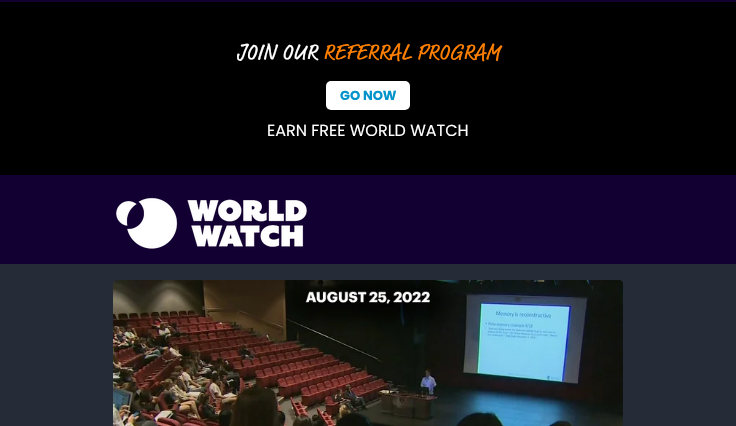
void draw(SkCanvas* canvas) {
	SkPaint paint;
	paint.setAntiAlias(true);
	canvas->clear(0xff120033);
	paint.setColor(0xff000000);
	canvas->drawRect(SkRect::MakeXYWH(0, 2, 736, 173), paint);
	SkFont f1(fontMgr->matchFamilyStyle("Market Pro", SkFontStyle::Normal()), 22.5);
	f1.setSubpixel(true);
	paint.setColor(0xffffffff);
	canvas->drawString("JOIN OUR", 237, 59, f1, paint);
	paint.setColor(0xffff8000);
	canvas->drawString("REFERRAL PROGRAM", 323, 59, f1, paint);
	paint.setColor(0xffffffff);
	canvas->drawRoundRect(SkRect::MakeXYWH(326, 81, 84, 29), 5, 5, paint);
	SkFont f2(fontMgr->matchFamilyStyle("Poppins", SkFontStyle::Bold()), 13);
	f2.setSubpixel(true);
	paint.setColor(0xff0193ca);
	canvas->drawString("GO NOW", 340, 100, f2, paint);
	SkFont f3(fontMgr->matchFamilyStyle("Poppins", SkFontStyle::Normal()), 16);
	f3.setSubpixel(true);
	paint.setColor(0xffffffff);
	canvas->drawString("EARN FREE WORLD WATCH", 267, 136, f3, paint);
	canvas->drawImageRect(SkImages::DeferredFromEncodedData(SkData::MakeFromFileName("img1.png")), SkRect::MakeXYWH(116, 197, 191, 52), SkSamplingOptions());
	paint.setColor(0xff252c38);
	canvas->drawRect(SkRect::MakeXYWH(0, 264, 736, 162), paint);
	canvas->drawImageRect(SkImages::DeferredFromEncodedData(SkData::MakeFromFileName("img2.png")), SkRect::MakeXYWH(113, 280, 510, 146), SkSamplingOptions());
}
